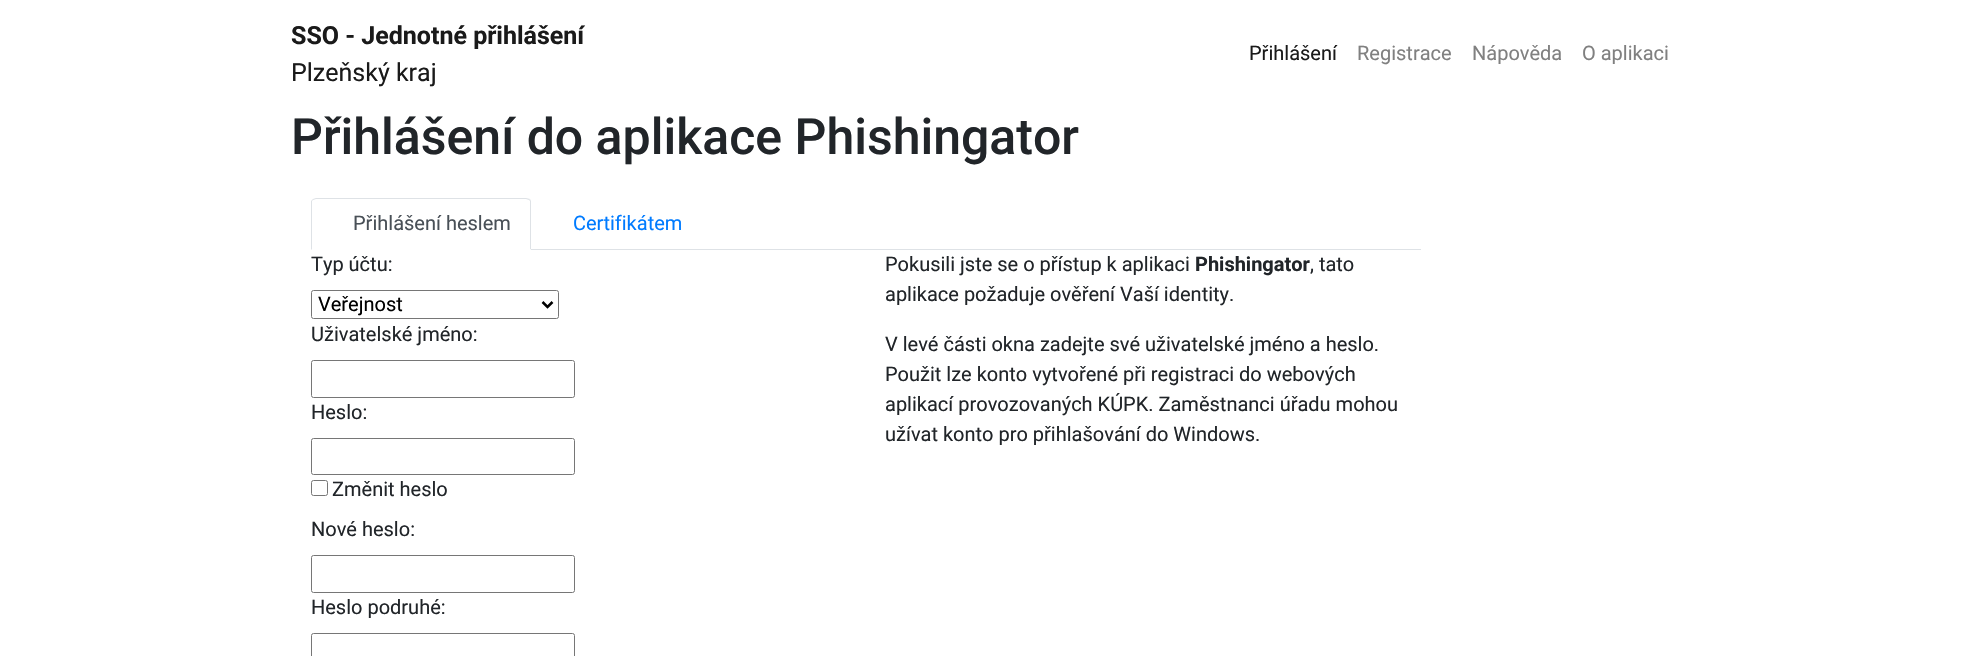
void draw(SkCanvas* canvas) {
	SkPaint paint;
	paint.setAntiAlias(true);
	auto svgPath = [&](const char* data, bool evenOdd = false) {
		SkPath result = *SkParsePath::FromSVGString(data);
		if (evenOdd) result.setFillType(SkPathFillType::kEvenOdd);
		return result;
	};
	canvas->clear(0xffffffff);
	SkFont f1(fontMgr->matchFamilyStyle("Roboto", SkFontStyle::Bold()), 25);
	f1.setSubpixel(true);
	paint.setColor(0xff1a1a1a);
	canvas->drawString("SSO - Jednotné přihlášení", 291, 44, f1, paint);
	SkFont f2(fontMgr->matchFamilyStyle("Roboto", SkFontStyle::Normal()), 25);
	f2.setSubpixel(true);
	canvas->drawString("Plzeňský kraj", 291, 81, f2, paint);
	SkFont f3(fontMgr->matchFamilyStyle("Roboto", SkFontStyle::Normal()), 20);
	f3.setSubpixel(true);
	canvas->drawString("Přihlášení", 1249, 60, f3, paint);
	paint.setColor(0xff808080);
	canvas->drawString("Registrace", 1357, 60, f3, paint);
	canvas->drawString("Nápověda", 1472, 60, f3, paint);
	canvas->drawString("O aplikaci", 1582, 60, f3, paint);
	SkFont f4(fontMgr->matchFamilyStyle("Roboto", SkFontStyle(500, SkFontStyle::kNormal_Width, SkFontStyle::kUpright_Slant)), 50);
	f4.setSubpixel(true);
	paint.setColor(0xff212529);
	canvas->drawString("Přihlášení do aplikace Phishingator", 291, 154, f4, paint);
	paint.setColor(0xffdee2e6);
	canvas->drawRect(SkRect::MakeXYWH(531, 249, 890, 1), paint);
	canvas->drawPath(svgPath("M316 198L313 199V200L316 199H526L529 200L530 199L526 198Z"), paint);
	canvas->drawPath(svgPath("M531 250V201L530 199L529 200L530 201V249Z"), paint);
	paint.setColor(0xffffffff);
	canvas->drawPath(svgPath("M311 250H531L530 249H312Z"), paint);
	paint.setColor(0xffdee2e6);
	canvas->drawPath(svgPath("M311 250L312 249V201L313 200V199L311 201Z"), paint);
	paint.setColor(0xff495057);
	canvas->drawString("Přihlášení heslem", 353, 230, f3, paint);
	paint.setColor(0xff007bff);
	canvas->drawString("Certifikátem", 573, 230, f3, paint);
	paint.setColor(0xff212529);
	canvas->drawString("Typ účtu:", 311, 271, f3, paint);
	paint.setStroke(true);
	paint.setStrokeWidth(1);
	paint.setColor(0xff767676);
	canvas->drawRoundRect(SkRect::MakeXYWH(311.5, 290.5, 247, 28), 2, 2, paint);
	paint.setStrokeWidth(2.5);
	paint.setColor(0xff000000);
	canvas->drawPath(svgPath("M542.5 302L547.5 307L552.5 302"), paint);
	paint.setStroke(false);
	canvas->drawString("Veřejnost", 318, 311, f3, paint);
	paint.setColor(0xff212529);
	canvas->drawString("Uživatelské jméno:", 311, 341, f3, paint);
	paint.setStroke(true);
	paint.setStrokeWidth(1);
	paint.setColor(0xff767676);
	canvas->drawRoundRect(SkRect::MakeXYWH(311.5, 360.5, 263, 37), 2, 2, paint);
	paint.setStroke(false);
	paint.setColor(0xff212529);
	canvas->drawString("Heslo:", 311, 419, f3, paint);
	paint.setStroke(true);
	paint.setColor(0xff767676);
	canvas->drawRoundRect(SkRect::MakeXYWH(311.5, 438.5, 263, 36), 2, 2, paint);
	canvas->drawRoundRect(SkRect::MakeXYWH(311.5, 480.5, 16, 15), 2, 2, paint);
	paint.setStroke(false);
	paint.setColor(0xff212529);
	canvas->drawString("Změnit heslo", 332, 496, f3, paint);
	canvas->drawString("Nové heslo:", 311, 536, f3, paint);
	paint.setStroke(true);
	paint.setColor(0xff767676);
	canvas->drawRoundRect(SkRect::MakeXYWH(311.5, 555.5, 263, 37), 2, 2, paint);
	paint.setStroke(false);
	paint.setColor(0xff212529);
	canvas->drawString("Heslo podruhé:", 311, 614, f3, paint);
	paint.setStroke(true);
	paint.setColor(0xff767676);
	canvas->drawRoundRect(SkRect::MakeXYWH(311.5, 633.5, 263, 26), 2, 2, paint);
	paint.setStroke(false);
	paint.setColor(0xff212529);
	canvas->drawString("Pokusili jste se o přístup k aplikaci", 885, 271, f3, paint);
	SkFont f5(fontMgr->matchFamilyStyle("Roboto", SkFontStyle::Bold()), 20);
	f5.setSubpixel(true);
	canvas->drawString("Phishingator", 1195, 271, f5, paint);
	canvas->drawString(", tato", 1310, 271, f3, paint);
	canvas->drawString("aplikace požaduje ověření Vaší identity.", 885, 301, f3, paint);
	canvas->drawString("V levé části okna zadejte své uživatelské jméno a heslo.", 885, 351, f3, paint);
	canvas->drawString("Použit lze konto vytvořené při registraci do webových", 885, 381, f3, paint);
	canvas->drawString("aplikací provozovaných KÚPK. Zaměstnanci úřadu mohou", 885, 411, f3, paint);
	canvas->drawString("užívat konto pro přihlašování do Windows.", 885, 441, f3, paint);
}
